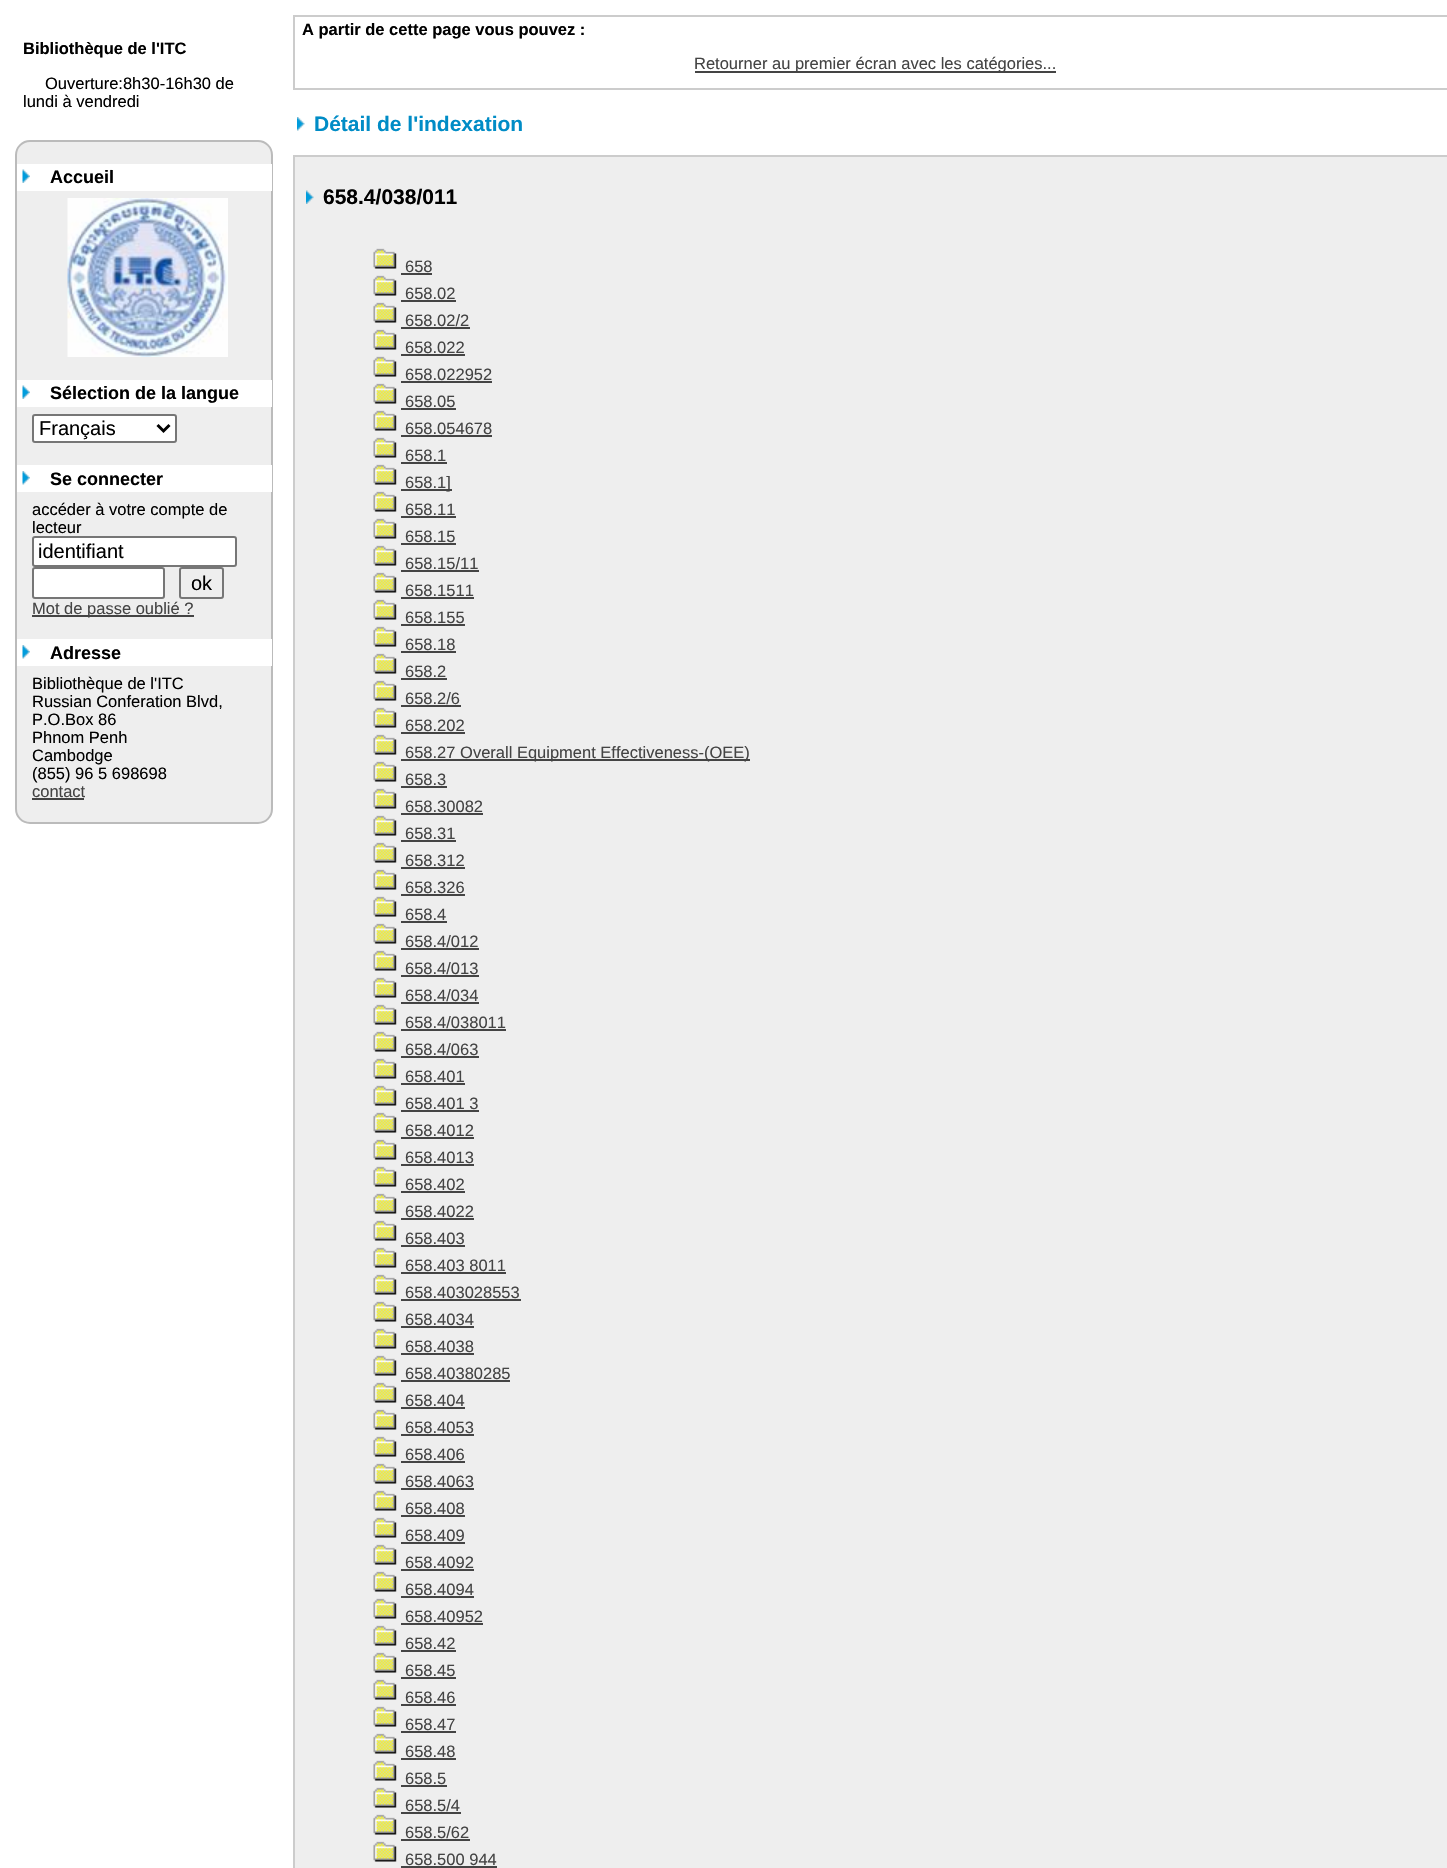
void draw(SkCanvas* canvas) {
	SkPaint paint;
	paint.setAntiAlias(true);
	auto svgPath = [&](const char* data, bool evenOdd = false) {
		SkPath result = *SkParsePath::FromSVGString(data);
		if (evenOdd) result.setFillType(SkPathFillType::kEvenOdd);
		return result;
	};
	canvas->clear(0xffffffff);
	SkFont f1(fontMgr->matchFamilyStyle("Liberation Sans", SkFontStyle::Bold()), 16.5);
	f1.setSubpixel(true);
	paint.setColor(0xff000000);
	canvas->drawString("Bibliothèque de l'ITC", 23, 54, f1, paint);
	SkFont f2(fontMgr->matchFamilyStyle("Liberation Sans", SkFontStyle::Normal()), 16.5);
	f2.setSubpixel(true);
	canvas->drawString("Ouverture:8h30-16h30 de", 45, 89, f2, paint);
	canvas->drawString("lundi à vendredi", 23, 107, f2, paint);
	paint.setStroke(true);
	paint.setStrokeWidth(2);
	paint.setColor(0xffcccccc);
	canvas->drawRect(SkRect::MakeXYWH(294, 16, 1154, 73), paint);
	paint.setStroke(false);
	paint.setColor(0xff000000);
	canvas->drawString("A partir de cette page vous pouvez :", 302, 35, f1, paint);
	paint.setColor(0xff444444);
	canvas->drawRect(SkRect::MakeXYWH(695, 71, 361, 2), paint);
	canvas->drawString("Retourner au premier écran avec les catégories...", 694, 69, f2, paint);
	canvas->drawImageRect(SkImages::DeferredFromEncodedData(SkData::MakeFromFileName("img1.png")), SkRect::MakeXYWH(297, 117, 8, 14), SkSamplingOptions());
	SkFont f3(fontMgr->matchFamilyStyle("Liberation Sans", SkFontStyle::Bold()), 21);
	f3.setSubpixel(true);
	paint.setColor(0xff008cc6);
	canvas->drawString("Détail de l'indexation", 314, 131, f3, paint);
	paint.setColor(0xffeeeeee);
	canvas->drawRect(SkRect::MakeXYWH(294, 156, 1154, 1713), paint);
	paint.setStroke(true);
	paint.setColor(0xffcccccc);
	canvas->drawRect(SkRect::MakeXYWH(294, 156, 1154, 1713), paint);
	canvas->drawImageRect(SkImages::DeferredFromEncodedData(SkData::MakeFromFileName("img2.png")), SkRect::MakeXYWH(306, 190, 8, 14), SkSamplingOptions());
	paint.setStroke(false);
	paint.setColor(0xff000000);
	canvas->drawString("658.4/038/011", 323, 204, f3, paint);
	canvas->drawImageRect(SkImages::DeferredFromEncodedData(SkData::MakeFromFileName("img3.png")), SkRect::MakeXYWH(373, 248, 24, 21), SkSamplingOptions());
	paint.setColor(0xff444444);
	canvas->drawString("658", 405, 272, f2, paint);
	canvas->drawRect(SkRect::MakeXYWH(401, 273, 31, 2), paint);
	canvas->drawImageRect(SkImages::DeferredFromEncodedData(SkData::MakeFromFileName("img3.png")), SkRect::MakeXYWH(373, 275, 24, 21), SkSamplingOptions());
	canvas->drawString("658.02", 405, 299, f2, paint);
	canvas->drawRect(SkRect::MakeXYWH(401, 300, 55, 2), paint);
	canvas->drawImageRect(SkImages::DeferredFromEncodedData(SkData::MakeFromFileName("img3.png")), SkRect::MakeXYWH(373, 302, 24, 21), SkSamplingOptions());
	canvas->drawString("658.02/2", 405, 326, f2, paint);
	canvas->drawRect(SkRect::MakeXYWH(401, 327, 69, 2), paint);
	canvas->drawImageRect(SkImages::DeferredFromEncodedData(SkData::MakeFromFileName("img3.png")), SkRect::MakeXYWH(373, 329, 24, 21), SkSamplingOptions());
	canvas->drawString("658.022", 405, 353, f2, paint);
	canvas->drawRect(SkRect::MakeXYWH(401, 354, 64, 2), paint);
	canvas->drawImageRect(SkImages::DeferredFromEncodedData(SkData::MakeFromFileName("img3.png")), SkRect::MakeXYWH(373, 356, 24, 21), SkSamplingOptions());
	canvas->drawString("658.022952", 405, 380, f2, paint);
	canvas->drawRect(SkRect::MakeXYWH(401, 381, 91, 2), paint);
	canvas->drawImageRect(SkImages::DeferredFromEncodedData(SkData::MakeFromFileName("img3.png")), SkRect::MakeXYWH(373, 383, 24, 21), SkSamplingOptions());
	canvas->drawString("658.05", 405, 407, f2, paint);
	canvas->drawRect(SkRect::MakeXYWH(401, 408, 55, 2), paint);
	canvas->drawImageRect(SkImages::DeferredFromEncodedData(SkData::MakeFromFileName("img3.png")), SkRect::MakeXYWH(373, 410, 24, 21), SkSamplingOptions());
	canvas->drawString("658.054678", 405, 434, f2, paint);
	canvas->drawRect(SkRect::MakeXYWH(401, 435, 91, 2), paint);
	canvas->drawImageRect(SkImages::DeferredFromEncodedData(SkData::MakeFromFileName("img3.png")), SkRect::MakeXYWH(373, 437, 24, 21), SkSamplingOptions());
	canvas->drawString("658.1", 405, 461, f2, paint);
	canvas->drawRect(SkRect::MakeXYWH(401, 462, 46, 2), paint);
	canvas->drawImageRect(SkImages::DeferredFromEncodedData(SkData::MakeFromFileName("img3.png")), SkRect::MakeXYWH(373, 464, 24, 21), SkSamplingOptions());
	canvas->drawRect(SkRect::MakeXYWH(401, 489, 51, 2), paint);
	canvas->drawString("658.1]", 405, 488, f2, paint);
	canvas->drawImageRect(SkImages::DeferredFromEncodedData(SkData::MakeFromFileName("img3.png")), SkRect::MakeXYWH(373, 491, 24, 21), SkSamplingOptions());
	canvas->drawString("658.11", 405, 515, f2, paint);
	canvas->drawRect(SkRect::MakeXYWH(401, 516, 55, 2), paint);
	canvas->drawImageRect(SkImages::DeferredFromEncodedData(SkData::MakeFromFileName("img3.png")), SkRect::MakeXYWH(373, 518, 24, 21), SkSamplingOptions());
	canvas->drawString("658.15", 405, 542, f2, paint);
	canvas->drawRect(SkRect::MakeXYWH(401, 543, 55, 2), paint);
	canvas->drawImageRect(SkImages::DeferredFromEncodedData(SkData::MakeFromFileName("img3.png")), SkRect::MakeXYWH(373, 545, 24, 21), SkSamplingOptions());
	canvas->drawString("658.15/11", 405, 569, f2, paint);
	canvas->drawRect(SkRect::MakeXYWH(401, 570, 78, 2), paint);
	canvas->drawImageRect(SkImages::DeferredFromEncodedData(SkData::MakeFromFileName("img3.png")), SkRect::MakeXYWH(373, 572, 24, 21), SkSamplingOptions());
	canvas->drawString("658.1511", 405, 596, f2, paint);
	canvas->drawRect(SkRect::MakeXYWH(401, 597, 73, 2), paint);
	canvas->drawImageRect(SkImages::DeferredFromEncodedData(SkData::MakeFromFileName("img3.png")), SkRect::MakeXYWH(373, 599, 24, 21), SkSamplingOptions());
	canvas->drawString("658.155", 405, 623, f2, paint);
	canvas->drawRect(SkRect::MakeXYWH(401, 624, 64, 2), paint);
	canvas->drawImageRect(SkImages::DeferredFromEncodedData(SkData::MakeFromFileName("img3.png")), SkRect::MakeXYWH(373, 626, 24, 21), SkSamplingOptions());
	canvas->drawString("658.18", 405, 650, f2, paint);
	canvas->drawRect(SkRect::MakeXYWH(401, 651, 55, 2), paint);
	canvas->drawImageRect(SkImages::DeferredFromEncodedData(SkData::MakeFromFileName("img3.png")), SkRect::MakeXYWH(373, 653, 24, 21), SkSamplingOptions());
	canvas->drawString("658.2", 405, 677, f2, paint);
	canvas->drawRect(SkRect::MakeXYWH(401, 678, 46, 2), paint);
	canvas->drawImageRect(SkImages::DeferredFromEncodedData(SkData::MakeFromFileName("img3.png")), SkRect::MakeXYWH(373, 680, 24, 21), SkSamplingOptions());
	canvas->drawString("658.2/6", 405, 704, f2, paint);
	canvas->drawRect(SkRect::MakeXYWH(401, 705, 60, 2), paint);
	canvas->drawImageRect(SkImages::DeferredFromEncodedData(SkData::MakeFromFileName("img3.png")), SkRect::MakeXYWH(373, 707, 24, 21), SkSamplingOptions());
	canvas->drawString("658.202", 405, 731, f2, paint);
	canvas->drawRect(SkRect::MakeXYWH(401, 732, 64, 2), paint);
	canvas->drawImageRect(SkImages::DeferredFromEncodedData(SkData::MakeFromFileName("img3.png")), SkRect::MakeXYWH(373, 734, 24, 21), SkSamplingOptions());
	canvas->drawRect(SkRect::MakeXYWH(401, 759, 349, 2), paint);
	canvas->drawString("658.27 Overall Equipment Effectiveness-(OEE)", 405, 758, f2, paint);
	canvas->drawImageRect(SkImages::DeferredFromEncodedData(SkData::MakeFromFileName("img3.png")), SkRect::MakeXYWH(373, 761, 24, 21), SkSamplingOptions());
	canvas->drawString("658.3", 405, 785, f2, paint);
	canvas->drawRect(SkRect::MakeXYWH(401, 786, 46, 2), paint);
	canvas->drawImageRect(SkImages::DeferredFromEncodedData(SkData::MakeFromFileName("img3.png")), SkRect::MakeXYWH(373, 788, 24, 21), SkSamplingOptions());
	canvas->drawString("658.30082", 405, 812, f2, paint);
	canvas->drawRect(SkRect::MakeXYWH(401, 813, 82, 2), paint);
	canvas->drawImageRect(SkImages::DeferredFromEncodedData(SkData::MakeFromFileName("img3.png")), SkRect::MakeXYWH(373, 815, 24, 21), SkSamplingOptions());
	canvas->drawString("658.31", 405, 839, f2, paint);
	canvas->drawRect(SkRect::MakeXYWH(401, 840, 55, 2), paint);
	canvas->drawImageRect(SkImages::DeferredFromEncodedData(SkData::MakeFromFileName("img3.png")), SkRect::MakeXYWH(373, 842, 24, 21), SkSamplingOptions());
	canvas->drawString("658.312", 405, 866, f2, paint);
	canvas->drawRect(SkRect::MakeXYWH(401, 867, 64, 2), paint);
	canvas->drawImageRect(SkImages::DeferredFromEncodedData(SkData::MakeFromFileName("img3.png")), SkRect::MakeXYWH(373, 869, 24, 21), SkSamplingOptions());
	canvas->drawString("658.326", 405, 893, f2, paint);
	canvas->drawRect(SkRect::MakeXYWH(401, 894, 64, 2), paint);
	canvas->drawImageRect(SkImages::DeferredFromEncodedData(SkData::MakeFromFileName("img3.png")), SkRect::MakeXYWH(373, 896, 24, 21), SkSamplingOptions());
	canvas->drawString("658.4", 405, 920, f2, paint);
	canvas->drawRect(SkRect::MakeXYWH(401, 921, 46, 2), paint);
	canvas->drawImageRect(SkImages::DeferredFromEncodedData(SkData::MakeFromFileName("img3.png")), SkRect::MakeXYWH(373, 923, 24, 21), SkSamplingOptions());
	canvas->drawString("658.4/012", 405, 947, f2, paint);
	canvas->drawRect(SkRect::MakeXYWH(401, 948, 78, 2), paint);
	canvas->drawImageRect(SkImages::DeferredFromEncodedData(SkData::MakeFromFileName("img3.png")), SkRect::MakeXYWH(373, 950, 24, 21), SkSamplingOptions());
	canvas->drawString("658.4/013", 405, 974, f2, paint);
	canvas->drawRect(SkRect::MakeXYWH(401, 975, 78, 2), paint);
	canvas->drawImageRect(SkImages::DeferredFromEncodedData(SkData::MakeFromFileName("img3.png")), SkRect::MakeXYWH(373, 977, 24, 21), SkSamplingOptions());
	canvas->drawString("658.4/034", 405, 1001, f2, paint);
	canvas->drawRect(SkRect::MakeXYWH(401, 1002, 78, 2), paint);
	canvas->drawImageRect(SkImages::DeferredFromEncodedData(SkData::MakeFromFileName("img3.png")), SkRect::MakeXYWH(373, 1004, 24, 21), SkSamplingOptions());
	canvas->drawString("658.4/038011", 405, 1028, f2, paint);
	canvas->drawRect(SkRect::MakeXYWH(401, 1029, 105, 2), paint);
	canvas->drawImageRect(SkImages::DeferredFromEncodedData(SkData::MakeFromFileName("img3.png")), SkRect::MakeXYWH(373, 1031, 24, 21), SkSamplingOptions());
	canvas->drawString("658.4/063", 405, 1055, f2, paint);
	canvas->drawRect(SkRect::MakeXYWH(401, 1056, 78, 2), paint);
	canvas->drawImageRect(SkImages::DeferredFromEncodedData(SkData::MakeFromFileName("img3.png")), SkRect::MakeXYWH(373, 1058, 24, 21), SkSamplingOptions());
	canvas->drawString("658.401", 405, 1082, f2, paint);
	canvas->drawRect(SkRect::MakeXYWH(401, 1083, 64, 2), paint);
	canvas->drawImageRect(SkImages::DeferredFromEncodedData(SkData::MakeFromFileName("img3.png")), SkRect::MakeXYWH(373, 1085, 24, 21), SkSamplingOptions());
	canvas->drawString("658.401 3", 405, 1109, f2, paint);
	canvas->drawRect(SkRect::MakeXYWH(401, 1110, 78, 2), paint);
	canvas->drawImageRect(SkImages::DeferredFromEncodedData(SkData::MakeFromFileName("img3.png")), SkRect::MakeXYWH(373, 1112, 24, 21), SkSamplingOptions());
	canvas->drawString("658.4012", 405, 1136, f2, paint);
	canvas->drawRect(SkRect::MakeXYWH(401, 1137, 73, 2), paint);
	canvas->drawImageRect(SkImages::DeferredFromEncodedData(SkData::MakeFromFileName("img3.png")), SkRect::MakeXYWH(373, 1139, 24, 21), SkSamplingOptions());
	canvas->drawString("658.4013", 405, 1163, f2, paint);
	canvas->drawRect(SkRect::MakeXYWH(401, 1164, 73, 2), paint);
	canvas->drawImageRect(SkImages::DeferredFromEncodedData(SkData::MakeFromFileName("img3.png")), SkRect::MakeXYWH(373, 1166, 24, 21), SkSamplingOptions());
	canvas->drawString("658.402", 405, 1190, f2, paint);
	canvas->drawRect(SkRect::MakeXYWH(401, 1191, 64, 2), paint);
	canvas->drawImageRect(SkImages::DeferredFromEncodedData(SkData::MakeFromFileName("img3.png")), SkRect::MakeXYWH(373, 1193, 24, 21), SkSamplingOptions());
	canvas->drawString("658.4022", 405, 1217, f2, paint);
	canvas->drawRect(SkRect::MakeXYWH(401, 1218, 73, 2), paint);
	canvas->drawImageRect(SkImages::DeferredFromEncodedData(SkData::MakeFromFileName("img3.png")), SkRect::MakeXYWH(373, 1220, 24, 21), SkSamplingOptions());
	canvas->drawString("658.403", 405, 1244, f2, paint);
	canvas->drawRect(SkRect::MakeXYWH(401, 1245, 64, 2), paint);
	canvas->drawImageRect(SkImages::DeferredFromEncodedData(SkData::MakeFromFileName("img3.png")), SkRect::MakeXYWH(373, 1247, 24, 21), SkSamplingOptions());
	canvas->drawString("658.403 8011", 405, 1271, f2, paint);
	canvas->drawRect(SkRect::MakeXYWH(401, 1272, 105, 2), paint);
	canvas->drawImageRect(SkImages::DeferredFromEncodedData(SkData::MakeFromFileName("img3.png")), SkRect::MakeXYWH(373, 1274, 24, 21), SkSamplingOptions());
	canvas->drawString("658.403028553", 405, 1298, f2, paint);
	canvas->drawRect(SkRect::MakeXYWH(401, 1299, 120, 2), paint);
	canvas->drawImageRect(SkImages::DeferredFromEncodedData(SkData::MakeFromFileName("img3.png")), SkRect::MakeXYWH(373, 1301, 24, 21), SkSamplingOptions());
	canvas->drawString("658.4034", 405, 1325, f2, paint);
	canvas->drawRect(SkRect::MakeXYWH(401, 1326, 73, 2), paint);
	canvas->drawImageRect(SkImages::DeferredFromEncodedData(SkData::MakeFromFileName("img3.png")), SkRect::MakeXYWH(373, 1328, 24, 21), SkSamplingOptions());
	canvas->drawString("658.4038", 405, 1352, f2, paint);
	canvas->drawRect(SkRect::MakeXYWH(401, 1353, 73, 2), paint);
	canvas->drawImageRect(SkImages::DeferredFromEncodedData(SkData::MakeFromFileName("img3.png")), SkRect::MakeXYWH(373, 1355, 24, 21), SkSamplingOptions());
	canvas->drawString("658.40380285", 405, 1379, f2, paint);
	canvas->drawRect(SkRect::MakeXYWH(401, 1380, 109, 2), paint);
	canvas->drawImageRect(SkImages::DeferredFromEncodedData(SkData::MakeFromFileName("img3.png")), SkRect::MakeXYWH(373, 1382, 24, 21), SkSamplingOptions());
	canvas->drawString("658.404", 405, 1406, f2, paint);
	canvas->drawRect(SkRect::MakeXYWH(401, 1407, 64, 2), paint);
	canvas->drawImageRect(SkImages::DeferredFromEncodedData(SkData::MakeFromFileName("img3.png")), SkRect::MakeXYWH(373, 1409, 24, 21), SkSamplingOptions());
	canvas->drawString("658.4053", 405, 1433, f2, paint);
	canvas->drawRect(SkRect::MakeXYWH(401, 1434, 73, 2), paint);
	canvas->drawImageRect(SkImages::DeferredFromEncodedData(SkData::MakeFromFileName("img3.png")), SkRect::MakeXYWH(373, 1436, 24, 21), SkSamplingOptions());
	canvas->drawString("658.406", 405, 1460, f2, paint);
	canvas->drawRect(SkRect::MakeXYWH(401, 1461, 64, 2), paint);
	canvas->drawImageRect(SkImages::DeferredFromEncodedData(SkData::MakeFromFileName("img3.png")), SkRect::MakeXYWH(373, 1463, 24, 21), SkSamplingOptions());
	canvas->drawString("658.4063", 405, 1487, f2, paint);
	canvas->drawRect(SkRect::MakeXYWH(401, 1488, 73, 2), paint);
	canvas->drawImageRect(SkImages::DeferredFromEncodedData(SkData::MakeFromFileName("img3.png")), SkRect::MakeXYWH(373, 1490, 24, 21), SkSamplingOptions());
	canvas->drawString("658.408", 405, 1514, f2, paint);
	canvas->drawRect(SkRect::MakeXYWH(401, 1515, 64, 2), paint);
	canvas->drawImageRect(SkImages::DeferredFromEncodedData(SkData::MakeFromFileName("img3.png")), SkRect::MakeXYWH(373, 1517, 24, 21), SkSamplingOptions());
	canvas->drawString("658.409", 405, 1541, f2, paint);
	canvas->drawRect(SkRect::MakeXYWH(401, 1542, 64, 2), paint);
	canvas->drawImageRect(SkImages::DeferredFromEncodedData(SkData::MakeFromFileName("img3.png")), SkRect::MakeXYWH(373, 1544, 24, 21), SkSamplingOptions());
	canvas->drawString("658.4092", 405, 1568, f2, paint);
	canvas->drawRect(SkRect::MakeXYWH(401, 1569, 73, 2), paint);
	canvas->drawImageRect(SkImages::DeferredFromEncodedData(SkData::MakeFromFileName("img3.png")), SkRect::MakeXYWH(373, 1571, 24, 21), SkSamplingOptions());
	canvas->drawString("658.4094", 405, 1595, f2, paint);
	canvas->drawRect(SkRect::MakeXYWH(401, 1596, 73, 2), paint);
	canvas->drawImageRect(SkImages::DeferredFromEncodedData(SkData::MakeFromFileName("img3.png")), SkRect::MakeXYWH(373, 1598, 24, 21), SkSamplingOptions());
	canvas->drawString("658.40952", 405, 1622, f2, paint);
	canvas->drawRect(SkRect::MakeXYWH(401, 1623, 82, 2), paint);
	canvas->drawImageRect(SkImages::DeferredFromEncodedData(SkData::MakeFromFileName("img3.png")), SkRect::MakeXYWH(373, 1625, 24, 21), SkSamplingOptions());
	canvas->drawString("658.42", 405, 1649, f2, paint);
	canvas->drawRect(SkRect::MakeXYWH(401, 1650, 55, 2), paint);
	canvas->drawImageRect(SkImages::DeferredFromEncodedData(SkData::MakeFromFileName("img3.png")), SkRect::MakeXYWH(373, 1652, 24, 21), SkSamplingOptions());
	canvas->drawString("658.45", 405, 1676, f2, paint);
	canvas->drawRect(SkRect::MakeXYWH(401, 1677, 55, 2), paint);
	canvas->drawImageRect(SkImages::DeferredFromEncodedData(SkData::MakeFromFileName("img3.png")), SkRect::MakeXYWH(373, 1679, 24, 21), SkSamplingOptions());
	canvas->drawString("658.46", 405, 1703, f2, paint);
	canvas->drawRect(SkRect::MakeXYWH(401, 1704, 55, 2), paint);
	canvas->drawImageRect(SkImages::DeferredFromEncodedData(SkData::MakeFromFileName("img3.png")), SkRect::MakeXYWH(373, 1706, 24, 21), SkSamplingOptions());
	canvas->drawString("658.47", 405, 1730, f2, paint);
	canvas->drawRect(SkRect::MakeXYWH(401, 1731, 55, 2), paint);
	canvas->drawImageRect(SkImages::DeferredFromEncodedData(SkData::MakeFromFileName("img3.png")), SkRect::MakeXYWH(373, 1733, 24, 21), SkSamplingOptions());
	canvas->drawString("658.48", 405, 1757, f2, paint);
	canvas->drawRect(SkRect::MakeXYWH(401, 1758, 55, 2), paint);
	canvas->drawImageRect(SkImages::DeferredFromEncodedData(SkData::MakeFromFileName("img3.png")), SkRect::MakeXYWH(373, 1760, 24, 21), SkSamplingOptions());
	canvas->drawString("658.5", 405, 1784, f2, paint);
	canvas->drawRect(SkRect::MakeXYWH(401, 1785, 46, 2), paint);
	canvas->drawImageRect(SkImages::DeferredFromEncodedData(SkData::MakeFromFileName("img3.png")), SkRect::MakeXYWH(373, 1787, 24, 21), SkSamplingOptions());
	canvas->drawString("658.5/4", 405, 1811, f2, paint);
	canvas->drawRect(SkRect::MakeXYWH(401, 1812, 60, 2), paint);
	canvas->drawImageRect(SkImages::DeferredFromEncodedData(SkData::MakeFromFileName("img3.png")), SkRect::MakeXYWH(373, 1814, 24, 21), SkSamplingOptions());
	canvas->drawString("658.5/62", 405, 1838, f2, paint);
	canvas->drawRect(SkRect::MakeXYWH(401, 1839, 69, 2), paint);
	canvas->drawImageRect(SkImages::DeferredFromEncodedData(SkData::MakeFromFileName("img3.png")), SkRect::MakeXYWH(373, 1841, 24, 21), SkSamplingOptions());
	canvas->drawString("658.500 944", 405, 1865, f2, paint);
	canvas->drawRect(SkRect::MakeXYWH(401, 1866, 96, 2), paint);
	paint.setColor(0xffeeeeee);
	canvas->drawRoundRect(SkRect::MakeXYWH(16, 141, 256, 682), 14, 14, paint);
	paint.setStroke(true);
	paint.setColor(0xffbbbbbb);
	canvas->drawRoundRect(SkRect::MakeXYWH(16, 141, 256, 682), 14, 14, paint);
	paint.setStroke(false);
	paint.setColor(0xffffffff);
	canvas->drawRect(SkRect::MakeXYWH(17, 164, 255, 27), paint);
	canvas->drawImageRect(SkImages::DeferredFromEncodedData(SkData::MakeFromFileName("img4.png")), SkRect::MakeXYWH(22, 169, 8, 14), SkSamplingOptions());
	SkFont f4(fontMgr->matchFamilyStyle("Liberation Sans", SkFontStyle::Bold()), 18);
	f4.setSubpixel(true);
	paint.setColor(0xff000000);
	canvas->drawString("Accueil", 50, 183, f4, paint);
	canvas->drawImageRect(SkImages::DeferredFromEncodedData(SkData::MakeFromFileName("img5.png")), SkRect::MakeXYWH(67, 198, 161, 159), SkSamplingOptions());
	paint.setColor(0xffffffff);
	canvas->drawRect(SkRect::MakeXYWH(17, 380, 255, 27), paint);
	canvas->drawImageRect(SkImages::DeferredFromEncodedData(SkData::MakeFromFileName("img4.png")), SkRect::MakeXYWH(22, 385, 8, 14), SkSamplingOptions());
	paint.setColor(0xff000000);
	canvas->drawString("Sélection de la langue", 50, 399, f4, paint);
	paint.setColor(0xffffffff);
	canvas->drawRoundRect(SkRect::MakeXYWH(33, 415, 143, 27), 2, 2, paint);
	paint.setStroke(true);
	paint.setColor(0xff767676);
	canvas->drawRoundRect(SkRect::MakeXYWH(33, 415, 143, 27), 2, 2, paint);
	paint.setStrokeWidth(3);
	paint.setColor(0xff000000);
	canvas->drawPath(svgPath("M157.5 425L163.5 431L169.5 425"), paint);
	SkFont f5(fontMgr->matchFamilyStyle("Liberation Sans", SkFontStyle::Normal()), 20);
	f5.setSubpixel(true);
	paint.setStroke(false);
	canvas->drawString("Français", 39, 435, f5, paint);
	paint.setColor(0xffffffff);
	canvas->drawRect(SkRect::MakeXYWH(17, 465, 255, 27), paint);
	canvas->drawImageRect(SkImages::DeferredFromEncodedData(SkData::MakeFromFileName("img6.png")), SkRect::MakeXYWH(22, 471, 8, 14), SkSamplingOptions());
	paint.setColor(0xff000000);
	canvas->drawString("Se connecter", 50, 485, f4, paint);
	canvas->drawString("accéder à votre compte de", 32, 515, f2, paint);
	canvas->drawString("lecteur", 32, 533, f2, paint);
	paint.setColor(0xffffffff);
	canvas->drawRoundRect(SkRect::MakeXYWH(33, 537, 203, 29), 2, 2, paint);
	paint.setStroke(true);
	paint.setStrokeWidth(2);
	paint.setColor(0xff767676);
	canvas->drawRoundRect(SkRect::MakeXYWH(33, 537, 203, 29), 2, 2, paint);
	paint.setStroke(false);
	paint.setColor(0xff000000);
	canvas->drawString("identifiant", 38, 558, f5, paint);
	paint.setColor(0xffffffff);
	canvas->drawRoundRect(SkRect::MakeXYWH(33, 568, 131, 30), 2, 2, paint);
	paint.setStroke(true);
	paint.setColor(0xff767676);
	canvas->drawRoundRect(SkRect::MakeXYWH(33, 568, 131, 30), 2, 2, paint);
	canvas->drawRoundRect(SkRect::MakeXYWH(180, 568, 43, 30), 2, 2, paint);
	paint.setStroke(false);
	paint.setColor(0xff000000);
	canvas->drawString("ok", 191, 590, f5, paint);
	paint.setColor(0xff444444);
	canvas->drawRect(SkRect::MakeXYWH(32, 615, 162, 2), paint);
	canvas->drawString("Mot de passe oublié ?", 32, 614, f2, paint);
	paint.setColor(0xffffffff);
	canvas->drawRect(SkRect::MakeXYWH(17, 639, 255, 27), paint);
	canvas->drawImageRect(SkImages::DeferredFromEncodedData(SkData::MakeFromFileName("img6.png")), SkRect::MakeXYWH(22, 645, 8, 14), SkSamplingOptions());
	paint.setColor(0xff000000);
	canvas->drawString("Adresse", 50, 659, f4, paint);
	canvas->drawString("Bibliothèque de l'ITC", 32, 689, f2, paint);
	canvas->drawString("Russian Conferation Blvd,", 32, 707, f2, paint);
	canvas->drawString("P.O.Box 86", 32, 725, f2, paint);
	canvas->drawString("Phnom Penh", 32, 743, f2, paint);
	canvas->drawString("Cambodge", 32, 761, f2, paint);
	canvas->drawString("(855) 96 5 698698", 32, 779, f2, paint);
	paint.setColor(0xff444444);
	canvas->drawString("contact", 32, 797, f2, paint);
	canvas->drawRect(SkRect::MakeXYWH(32, 798, 52, 2), paint);
}
